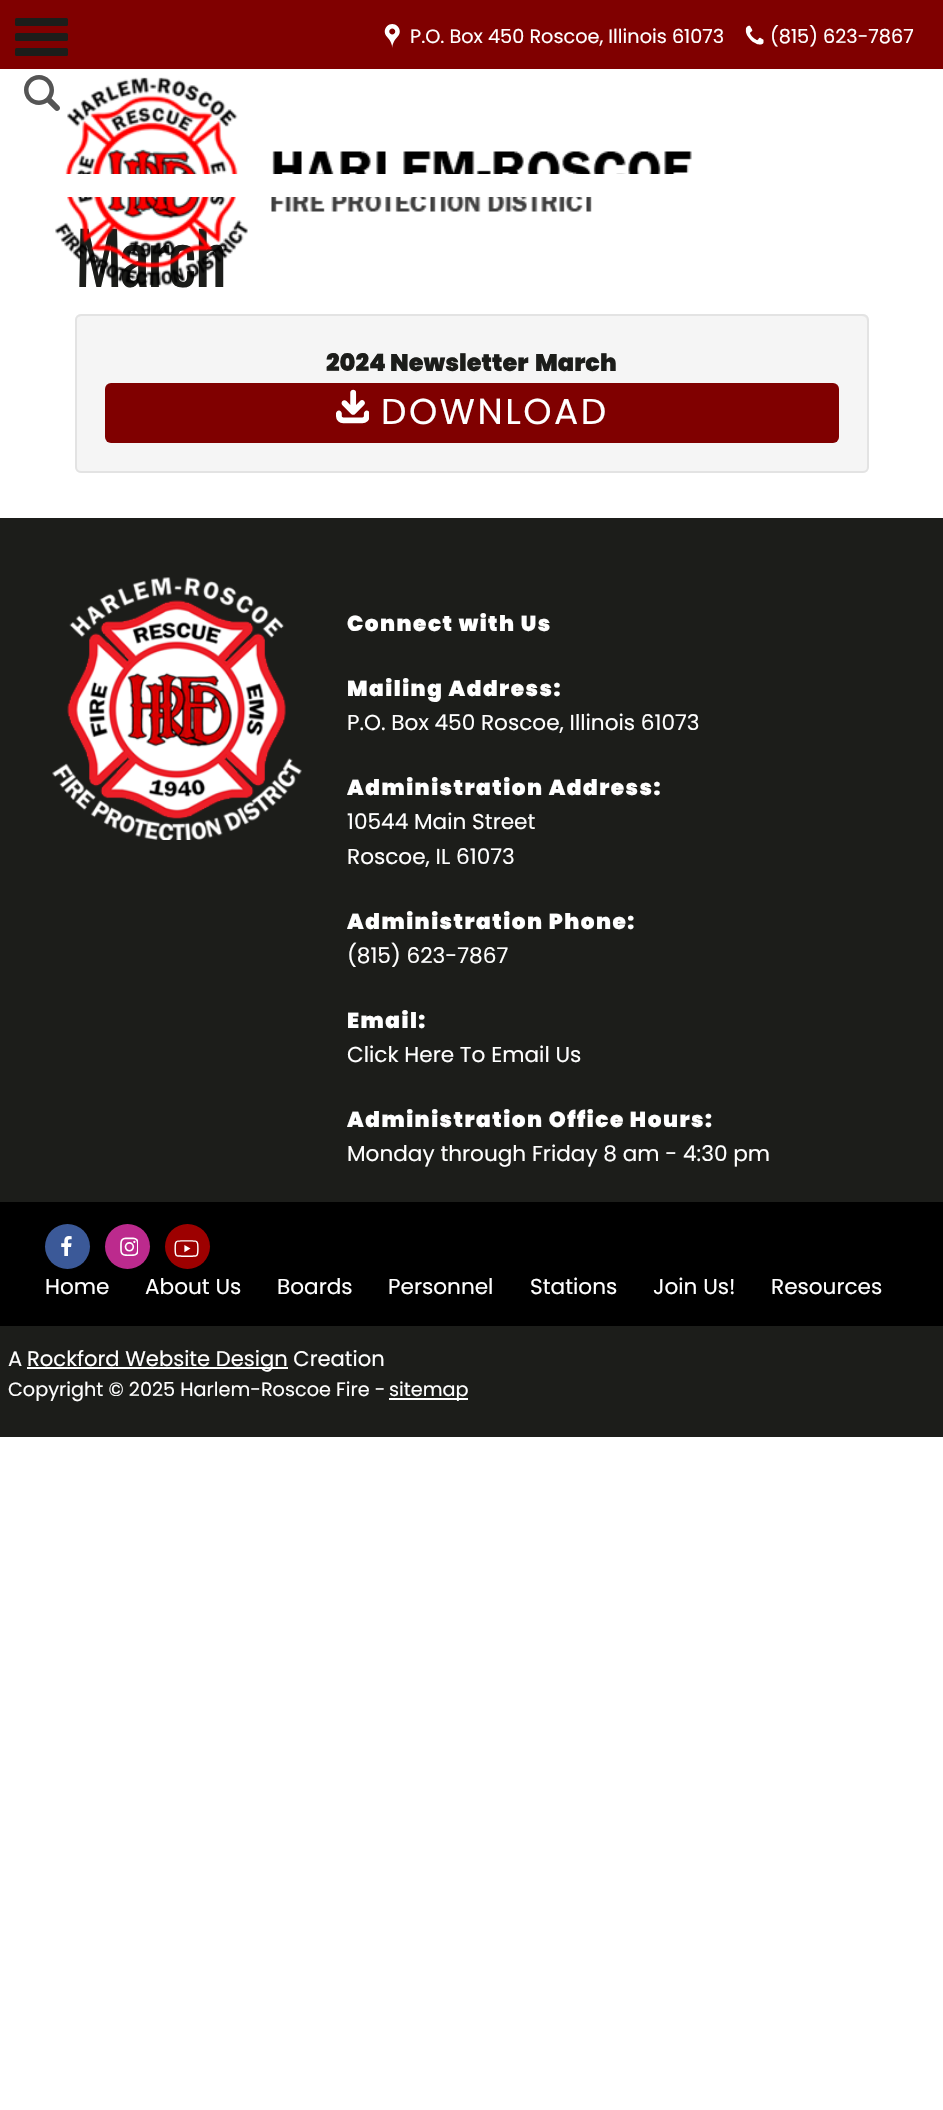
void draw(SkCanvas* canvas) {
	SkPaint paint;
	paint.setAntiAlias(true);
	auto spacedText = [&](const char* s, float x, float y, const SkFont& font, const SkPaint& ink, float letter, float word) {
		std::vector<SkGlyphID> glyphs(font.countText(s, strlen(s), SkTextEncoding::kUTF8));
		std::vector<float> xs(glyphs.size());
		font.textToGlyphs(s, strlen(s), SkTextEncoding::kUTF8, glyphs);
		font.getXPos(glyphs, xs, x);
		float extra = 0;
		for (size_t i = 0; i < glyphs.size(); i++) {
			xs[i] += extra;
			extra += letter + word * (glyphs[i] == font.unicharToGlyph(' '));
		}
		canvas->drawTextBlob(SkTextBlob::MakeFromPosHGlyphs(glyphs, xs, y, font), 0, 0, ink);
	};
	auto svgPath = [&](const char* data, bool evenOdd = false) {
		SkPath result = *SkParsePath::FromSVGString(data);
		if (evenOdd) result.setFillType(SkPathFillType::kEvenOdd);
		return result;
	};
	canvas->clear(0xffffffff);
	paint.setColor(0xff800000);
	canvas->drawRect(SkRect::MakeXYWH(0, 0, 943, 69), paint);
	paint.setColor(0xff1c1d1a);
	canvas->drawRoundRect(SkRect::MakeXYWH(15, 33, 53, 8), 1.5, 1.5, paint);
	canvas->drawRoundRect(SkRect::MakeXYWH(15, 18, 53, 8), 1.5, 1.5, paint);
	canvas->drawRoundRect(SkRect::MakeXYWH(15, 48, 53, 8), 1.5, 1.5, paint);
	canvas->drawImageRect(SkImages::DeferredFromEncodedData(SkData::MakeFromFileName("img1.png")), SkRect::MakeXYWH(384, 24, 16, 24), SkSamplingOptions());
	SkFont f1(fontMgr->matchFamilyStyle("Poppins", SkFontStyle::Normal()), 19.25);
	f1.setSubpixel(true);
	paint.setColor(0xffffffff);
	canvas->drawString("P.O. Box 450 Roscoe, Illinois 61073", 410, 43, f1, paint);
	canvas->drawImageRect(SkImages::DeferredFromEncodedData(SkData::MakeFromFileName("img2.png")), SkRect::MakeXYWH(745, 25, 19, 20), SkSamplingOptions());
	canvas->drawString("(815) 623-7867", 770, 43, f1, paint);
	canvas->drawImageRect(SkImages::DeferredFromEncodedData(SkData::MakeFromFileName("img3.png")), SkRect::MakeXYWH(24, 75, 36, 36), SkSamplingOptions());
	SkFont f2(fontMgr->matchFamilyStyle("Oswald", SkFontStyle::Normal()), 72);
	f2.setSubpixel(true);
	paint.setColor(0xff1c1d1a);
	spacedText("March", 75, 287, f2, paint, -2.5, 0);
	canvas->drawImageRect(SkImages::DeferredFromEncodedData(SkData::MakeFromFileName("img4.png")), SkRect::MakeXYWH(55, 77, 637, 209), SkSamplingOptions());
	paint.setColor(0xffffffff);
	canvas->drawRect(SkRect::MakeXYWH(64, 174, 628, 23), paint);
	paint.setColor(0xfff5f5f5);
	canvas->drawRoundRect(SkRect::MakeXYWH(75, 314, 794, 159), 6, 6, paint);
	paint.setColor(0xffe9e9e9);
	canvas->drawPath(svgPath("M81 316H862C865 316 867 319 867 321V320C867 317 865 315 862 315H82C80 315 78 316 77 318C78 317 80 316 81 316Z"), paint);
	paint.setStroke(true);
	paint.setStrokeWidth(2);
	paint.setColor(0xffe3e3e3);
	canvas->drawRoundRect(SkRect::MakeXYWH(76, 315, 792, 157), 5, 5, paint);
	SkFont f3(fontMgr->matchFamilyStyle("Poppins", SkFontStyle(900, SkFontStyle::kNormal_Width, SkFontStyle::kUpright_Slant)), 24);
	f3.setSubpixel(true);
	paint.setStroke(false);
	paint.setColor(0xff1c1d1a);
	canvas->drawString("2024 Newsletter", 326, 371, f3, paint);
	canvas->drawString("March", 535, 371, f3, paint);
	paint.setColor(0xff800000);
	canvas->drawRoundRect(SkRect::MakeXYWH(105, 383, 734, 60), 6, 6, paint);
	canvas->drawImageRect(SkImages::DeferredFromEncodedData(SkData::MakeFromFileName("img5.png")), SkRect::MakeXYWH(336, 389, 33, 35), SkSamplingOptions());
	SkFont f4(fontMgr->matchFamilyStyle("Poppins", SkFontStyle::Normal()), 36);
	f4.setSubpixel(true);
	paint.setColor(0xffffffff);
	spacedText("DOWNLOAD", 381, 424, f4, paint, 2.5, 0);
	paint.setColor(0xff1c1d1a);
	canvas->drawRect(SkRect::MakeXYWH(0, 518, 943, 684), paint);
	canvas->drawImageRect(SkImages::DeferredFromEncodedData(SkData::MakeFromFileName("img6.png")), SkRect::MakeXYWH(52, 577, 250, 263), SkSamplingOptions());
	SkFont f5(fontMgr->matchFamilyStyle("Poppins", SkFontStyle(900, SkFontStyle::kNormal_Width, SkFontStyle::kUpright_Slant)), 21.6);
	f5.setSubpixel(true);
	paint.setColor(0xffffffff);
	spacedText("Connect with Us", 347, 631, f5, paint, 1.5, 0);
	spacedText("Mailing Address:", 347, 696, f5, paint, 1.5, 0);
	SkFont f6(fontMgr->matchFamilyStyle("Poppins", SkFontStyle::Normal()), 21.6);
	f6.setSubpixel(true);
	canvas->drawString("P.O. Box 450 Roscoe, Illinois 61073", 347, 730, f6, paint);
	spacedText("Administration Address:", 347, 795, f5, paint, 1.5, 0);
	canvas->drawString("10544 Main Street", 347, 829, f6, paint);
	canvas->drawString("Roscoe, IL 61073", 347, 864, f6, paint);
	spacedText("Administration Phone:", 347, 929, f5, paint, 1.5, 0);
	canvas->drawString("(815) 623-7867", 347, 963, f6, paint);
	spacedText("Email:", 347, 1028, f5, paint, 1.5, 0);
	canvas->drawString("Click Here To Email Us", 347, 1062, f6, paint);
	spacedText("Administration Office Hours:", 347, 1127, f5, paint, 1.5, 0);
	canvas->drawString("Monday through Friday 8 am - 4:30 pm", 347, 1161, f6, paint);
	paint.setColor(0xff000000);
	canvas->drawRect(SkRect::MakeXYWH(0, 1202, 943, 124), paint);
	paint.setColor(0xff3b5998);
	canvas->drawCircle(67.5, 1246.5, 22.5, paint);
	canvas->drawImageRect(SkImages::DeferredFromEncodedData(SkData::MakeFromFileName("img7.png")), SkRect::MakeXYWH(61, 1236, 11, 20), SkSamplingOptions());
	paint.setColor(0xffbc2a8d);
	canvas->drawCircle(127.5, 1246.5, 22.5, paint);
	canvas->drawImageRect(SkImages::DeferredFromEncodedData(SkData::MakeFromFileName("img8.png")), SkRect::MakeXYWH(120, 1237, 18, 19), SkSamplingOptions());
	paint.setColor(0xff9d0000);
	canvas->drawCircle(187.5, 1246.5, 22.5, paint);
	canvas->drawImageRect(SkImages::DeferredFromEncodedData(SkData::MakeFromFileName("img9.png")), SkRect::MakeXYWH(174, 1240, 25, 17), SkSamplingOptions());
	paint.setColor(0xffffffff);
	canvas->drawString("Home", 45, 1294, f6, paint);
	canvas->drawString("About Us", 145, 1294, f6, paint);
	canvas->drawString("Boards", 277, 1294, f6, paint);
	canvas->drawString("Personnel", 388, 1294, f6, paint);
	canvas->drawString("Stations", 530, 1294, f6, paint);
	canvas->drawString("Join Us!", 653, 1294, f6, paint);
	canvas->drawString("Resources", 771, 1294, f6, paint);
	paint.setColor(0xff1c1d1a);
	canvas->drawRect(SkRect::MakeXYWH(0, 1326, 943, 111), paint);
	SkFont f7(fontMgr->matchFamilyStyle("Poppins", SkFontStyle::Normal()), 21.1);
	f7.setSubpixel(true);
	paint.setColor(0xffffffff);
	canvas->drawString("A", 8, 1366, f7, paint);
	canvas->drawRect(SkRect::MakeXYWH(27, 1367, 261, 2), paint);
	canvas->drawString("Rockford Website Design Creation", 27, 1366, f7, paint);
	canvas->drawString("Copyright © 2025 Harlem-Roscoe Fire -", 8, 1396, f1, paint);
	canvas->drawRect(SkRect::MakeXYWH(389, 1398, 79, 2), paint);
	canvas->drawString("sitemap", 389, 1396, f1, paint);
}
